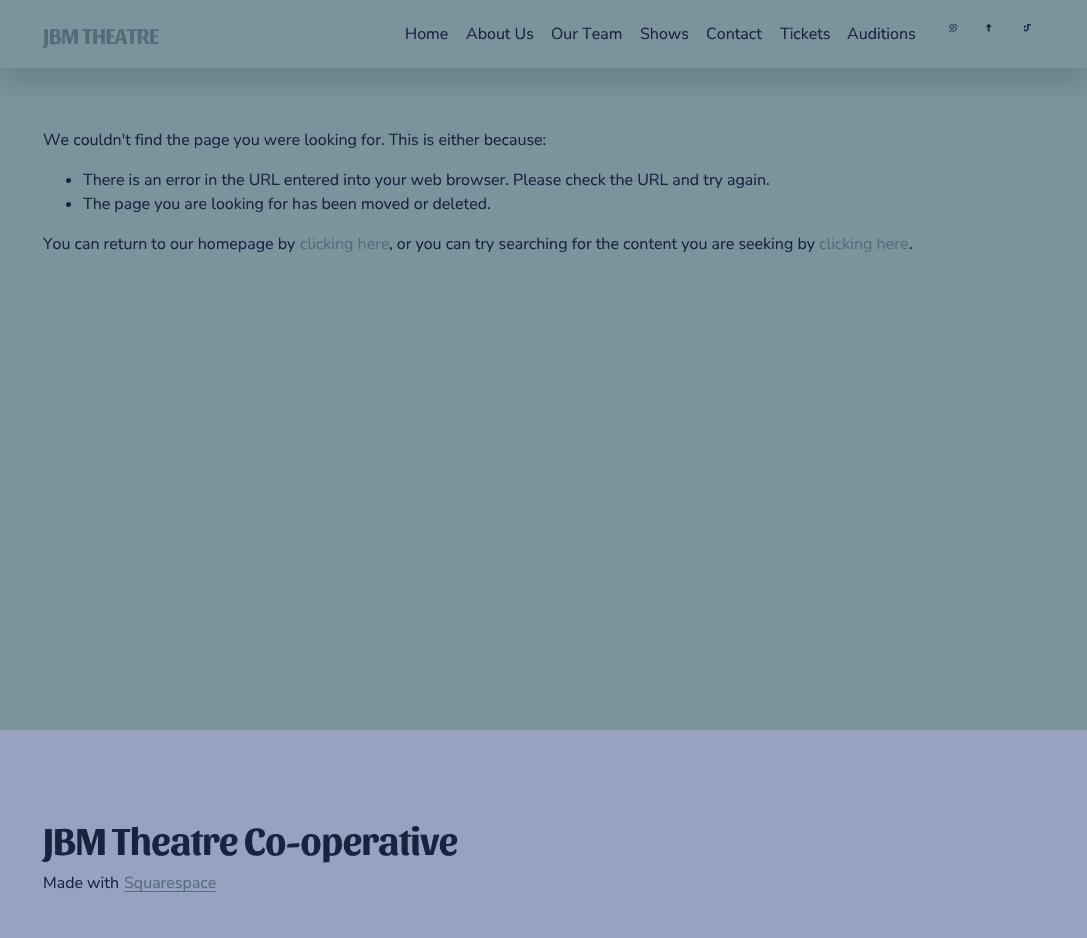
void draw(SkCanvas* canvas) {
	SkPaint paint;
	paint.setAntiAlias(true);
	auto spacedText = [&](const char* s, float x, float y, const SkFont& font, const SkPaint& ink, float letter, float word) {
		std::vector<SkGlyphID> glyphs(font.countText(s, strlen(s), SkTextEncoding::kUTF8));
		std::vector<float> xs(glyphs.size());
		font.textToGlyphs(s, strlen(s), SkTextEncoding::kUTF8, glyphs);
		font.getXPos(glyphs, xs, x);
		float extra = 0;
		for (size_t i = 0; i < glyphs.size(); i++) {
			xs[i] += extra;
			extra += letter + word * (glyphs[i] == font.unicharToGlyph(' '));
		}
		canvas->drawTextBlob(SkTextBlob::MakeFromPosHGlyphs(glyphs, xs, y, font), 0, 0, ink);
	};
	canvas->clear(0xff7b949c);
	canvas->save();
	canvas->clipRect(SkRect::MakeXYWH(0, 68, 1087, 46));
	paint.setColor(0xff6c838e);
	paint.setMaskFilter(SkMaskFilter::MakeBlur(kNormal_SkBlurStyle, 12.5));
	canvas->drawRect(SkRect::MakeXYWH(-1, 18, 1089, 70), paint);
	paint.setMaskFilter(nullptr);
	canvas->restore();
	SkFont f1(fontMgr->matchFamilyStyle("Sansita", SkFontStyle::Bold()), 22.5);
	f1.setSubpixel(true);
	paint.setColor(0xff536c7c);
	spacedText("JBM THEATRE", 43, 44, f1, paint, -0.5, 0);
	SkFont f2(fontMgr->matchFamilyStyle("Nunito Sans", SkFontStyle::Normal()), 16);
	f2.setSubpixel(true);
	paint.setColor(0xff182241);
	canvas->drawString("Home", 405, 39, f2, paint);
	canvas->drawString("About Us", 466, 39, f2, paint);
	canvas->drawString("Our Team", 551, 39, f2, paint);
	canvas->drawString("Shows", 640, 39, f2, paint);
	canvas->drawString("Contact", 706, 39, f2, paint);
	canvas->drawString("Tickets", 780, 39, f2, paint);
	canvas->drawString("Auditions", 847, 39, f2, paint);
	canvas->drawImageRect(SkImages::DeferredFromEncodedData(SkData::MakeFromFileName("img1.png")), SkRect::MakeXYWH(949, 24, 8, 8), SkSamplingOptions());
	canvas->drawImageRect(SkImages::DeferredFromEncodedData(SkData::MakeFromFileName("img2.png")), SkRect::MakeXYWH(986, 24, 6, 8), SkSamplingOptions());
	canvas->drawImageRect(SkImages::DeferredFromEncodedData(SkData::MakeFromFileName("img3.png")), SkRect::MakeXYWH(1024, 24, 7, 8), SkSamplingOptions());
	canvas->drawString("We couldn't find the page you were looking for. This is either because:", 43, 145, f2, paint);
	canvas->drawCircle(68.5, 180.5, 2.5, paint);
	canvas->drawString("There is an error in the URL entered into your web browser. Please check the URL and try again.", 83, 185, f2, paint);
	canvas->drawCircle(68.5, 204.5, 2.5, paint);
	canvas->drawString("The page you are looking for has been moved or deleted.", 83, 209, f2, paint);
	canvas->drawString("You can return to our homepage by", 43, 249, f2, paint);
	paint.setColor(0xff536c7c);
	canvas->drawString("clicking here", 300, 249, f2, paint);
	paint.setColor(0xff182241);
	canvas->drawString(", or you can try searching for the content you are seeking by", 389, 249, f2, paint);
	paint.setColor(0xff536c7c);
	canvas->drawString("clicking here", 819, 249, f2, paint);
	paint.setColor(0xff182241);
	canvas->drawString(".", 909, 249, f2, paint);
	paint.setColor(0xff97a1c2);
	canvas->drawRect(SkRect::MakeXYWH(0, 730, 1087, 208), paint);
	SkFont f3(fontMgr->matchFamilyStyle("Sansita", SkFontStyle::Bold()), 39.5);
	f3.setSubpixel(true);
	paint.setColor(0xff182241);
	spacedText("JBM Theatre Co-operative", 43, 855, f3, paint, -0.75, 0);
	canvas->drawString("Made with", 43, 888, f2, paint);
	paint.setColor(0xff536c7c);
	canvas->drawString("Squarespace", 124, 888, f2, paint);
	canvas->drawRect(SkRect::MakeXYWH(124, 891, 92, 1), paint);
}
